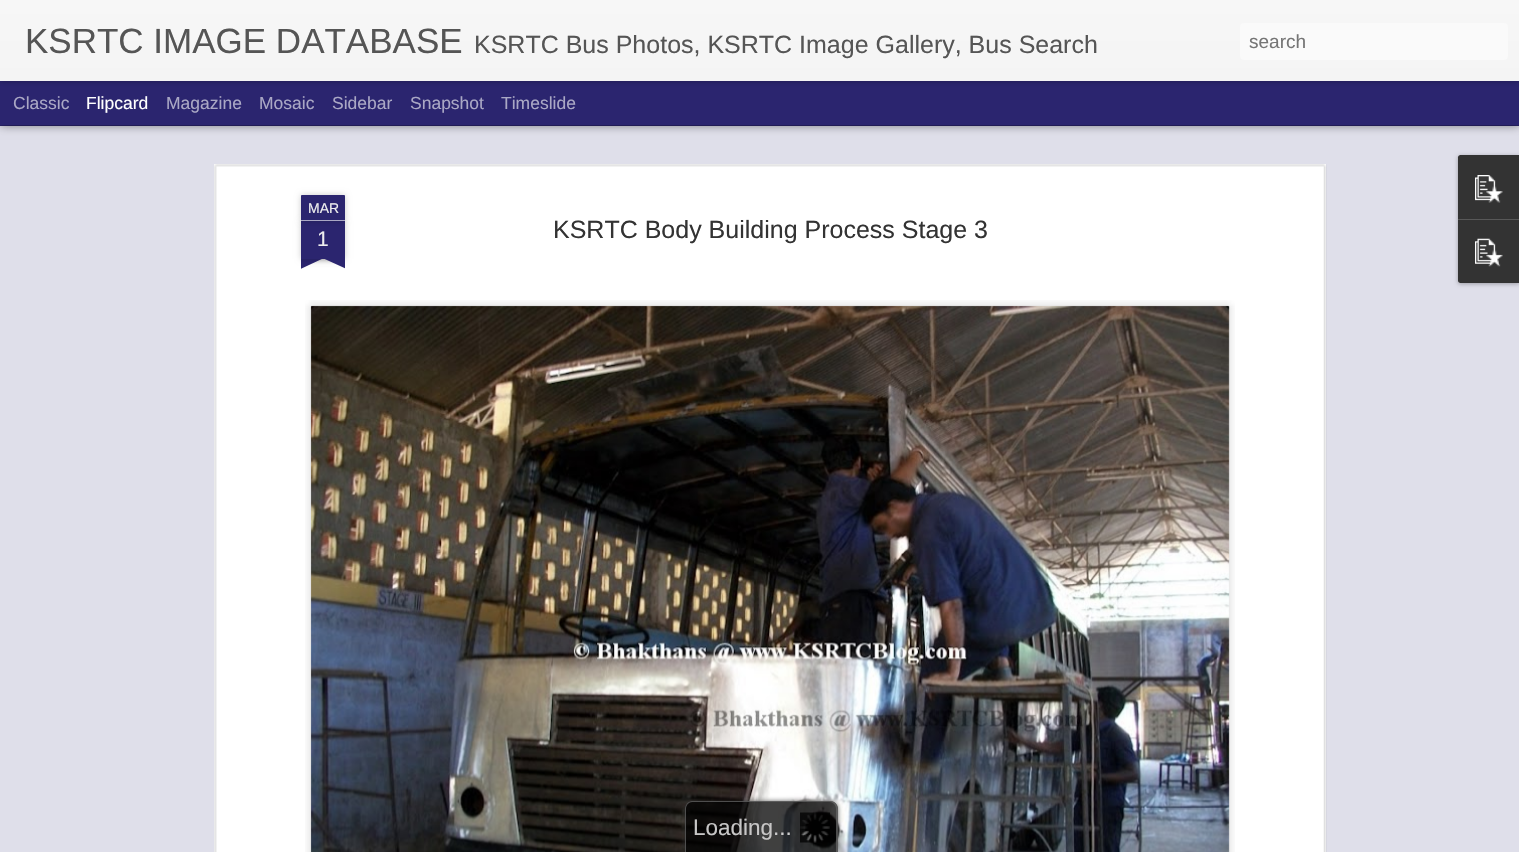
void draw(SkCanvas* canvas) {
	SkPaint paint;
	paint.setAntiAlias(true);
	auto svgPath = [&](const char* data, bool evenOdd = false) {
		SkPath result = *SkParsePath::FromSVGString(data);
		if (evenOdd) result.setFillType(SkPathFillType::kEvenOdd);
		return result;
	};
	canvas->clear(0xff2b256f);
	paint.setColor(0xffdfdfea);
	canvas->drawRect(SkRect::MakeXYWH(0, 126, 1519, 726), paint);
	paint.setColor(0x80000000);
	paint.setMaskFilter(SkMaskFilter::MakeBlur(kNormal_SkBlurStyle, 5));
	canvas->drawRect(SkRect::MakeXYWH(0, 81, 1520, 44), paint);
	paint.setMaskFilter(nullptr);
	paint.setColor(0xff2b256f);
	canvas->drawRect(SkRect::MakeXYWH(0, 81, 1519, 44), paint);
	paint.setColor(0x4d000000);
	paint.setMaskFilter(SkMaskFilter::MakeBlur(kNormal_SkBlurStyle, 3));
	canvas->drawRect(SkRect::MakeXYWH(0, 0, 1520, 81), paint);
	paint.setMaskFilter(nullptr);
	{
		const SkColor colors[] = {0xfff7f7f7, 0xfff4f4f4};
		const float stops[] = {0, 1};
		const SkPoint ends[] = {{0, 0}, {0, 81}};
		paint.setShader(SkGradientShader::MakeLinear(ends, colors, stops, 2, SkTileMode::kClamp));
		paint.setAlpha(255);
	}
	canvas->drawRect(SkRect::MakeXYWH(0, 0, 1519, 81), paint);
	SkFont f1(fontMgr->matchFamilyStyle("Liberation Sans", SkFontStyle::Normal()), 35);
	f1.setSubpixel(true);
	paint.setShader(nullptr);
	paint.setColor(0xff555555);
	canvas->drawString("KSRTC IMAGE DATABASE", 25, 53, f1, paint);
	SkFont f2(fontMgr->matchFamilyStyle("Liberation Sans", SkFontStyle::Normal()), 25);
	f2.setSubpixel(true);
	canvas->drawString("KSRTC Bus Photos, KSRTC Image Gallery, Bus Search", 474, 53, f2, paint);
	paint.setColor(0xfffafafa);
	canvas->drawRoundRect(SkRect::MakeXYWH(1240, 23, 268, 37), 4, 4, paint);
	SkFont f3(fontMgr->matchFamilyStyle("Liberation Sans", SkFontStyle::Normal()), 19);
	f3.setSubpixel(true);
	paint.setColor(0xff757575);
	canvas->drawString("search", 1249, 48, f3, paint);
	SkFont f4(fontMgr->matchFamilyStyle("Liberation Sans", SkFontStyle::Normal()), 17.5);
	f4.setSubpixel(true);
	paint.setColor(0xffaaa8c5);
	canvas->drawString("Classic", 13, 109, f4, paint);
	paint.setColor(0xffffffff);
	canvas->drawString("Flipcard", 86, 109, f4, paint);
	paint.setColor(0xffaaa8c5);
	canvas->drawString("Magazine", 166, 109, f4, paint);
	canvas->drawString("Mosaic", 259, 109, f4, paint);
	canvas->drawString("Sidebar", 332, 109, f4, paint);
	canvas->drawString("Snapshot", 410, 109, f4, paint);
	canvas->drawString("Timeslide", 501, 109, f4, paint);
	paint.setColor(0xffffffff);
	canvas->drawRect(SkRect::MakeXYWH(214, 164, 1112, 688), paint);
	canvas->drawImageRect(SkImages::DeferredFromEncodedData(SkData::MakeFromFileName("img1.png")), SkRect::MakeXYWH(214, 164, 1113, 688), SkSamplingOptions());
	paint.setColor(0x33000000);
	paint.setMaskFilter(SkMaskFilter::MakeBlur(kNormal_SkBlurStyle, 3));
	canvas->drawRect(SkRect::MakeXYWH(301, 221, 44, 38), paint);
	paint.setMaskFilter(nullptr);
	paint.setColor(0xff2b256f);
	canvas->drawRect(SkRect::MakeXYWH(301, 221, 44, 38), paint);
	paint.setColor(0x33000000);
	paint.setMaskFilter(SkMaskFilter::MakeBlur(kNormal_SkBlurStyle, 3));
	canvas->drawRoundRect(SkRect::MakeXYWH(301, 195, 44, 26), 1, 1, paint);
	paint.setMaskFilter(nullptr);
	paint.setColor(0xff2b256f);
	canvas->drawPath(svgPath("M302 195H344C344.5 195 345 195.5 345 196V221H301V196C301 195.5 301.5 195 302 195Z"), paint);
	paint.setColor(0xffaaa8c5);
	canvas->drawRect(SkRect::MakeXYWH(301, 220, 44, 1), paint);
	SkFont f5(fontMgr->matchFamilyStyle("Liberation Sans", SkFontStyle::Normal()), 14);
	f5.setSubpixel(true);
	paint.setColor(0xffeeeeee);
	canvas->drawString("MAR", 308, 213, f5, paint);
	SkFont f6(fontMgr->matchFamilyStyle("Liberation Sans", SkFontStyle::Normal()), 21);
	f6.setSubpixel(true);
	canvas->drawString("1", 317, 246, f6, paint);
	canvas->save();
	canvas->clipRect(SkRect::MakeXYWH(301, 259, 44, 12));
	paint.setColor(0x33000000);
	paint.setMaskFilter(SkMaskFilter::MakeBlur(kNormal_SkBlurStyle, 3));
	canvas->drawRect(SkRect::MakeXYWH(290, 246, 63, 13), paint);
	paint.setMaskFilter(nullptr);
	canvas->restore();
	canvas->save();
	canvas->clipRect(SkRect::MakeXYWH(301, 259, 44, 12));
	paint.setColor(0xff2b256f);
	canvas->drawPath(svgPath("M290 260L347 234L352 245L296 271Z"), paint);
	canvas->restore();
	canvas->save();
	canvas->clipRect(SkRect::MakeXYWH(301, 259, 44, 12));
	paint.setColor(0x33000000);
	paint.setMaskFilter(SkMaskFilter::MakeBlur(kNormal_SkBlurStyle, 3));
	canvas->drawRect(SkRect::MakeXYWH(294, 246, 62, 13), paint);
	paint.setMaskFilter(nullptr);
	canvas->restore();
	canvas->save();
	canvas->clipRect(SkRect::MakeXYWH(301, 259, 44, 12));
	paint.setColor(0xff2b256f);
	canvas->drawPath(svgPath("M299 234L356 260L351 271L294 245Z"), paint);
	canvas->restore();
	paint.setColor(0xff333333);
	canvas->drawString("KSRTC Body Building Process Stage 3", 553, 238, f2, paint);
	canvas->drawImageRect(SkImages::DeferredFromEncodedData(SkData::MakeFromFileName("img2.png")), SkRect::MakeXYWH(305, 300, 930, 552), SkSamplingOptions());
	canvas->drawImageRect(SkImages::DeferredFromEncodedData(SkData::MakeFromFileName("img3.png")), SkRect::MakeXYWH(310, 305, 919, 547), SkSamplingOptions());
	paint.setColor(0x4d000000);
	paint.setMaskFilter(SkMaskFilter::MakeBlur(kNormal_SkBlurStyle, 2));
	canvas->drawRoundRect(SkRect::MakeXYWH(1458, 156, 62, 128), 2.5, 2.5, paint);
	paint.setMaskFilter(nullptr);
	paint.setColor(0xff333333);
	canvas->drawPath(svgPath("M1460.5 155H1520V219H1458V157.5C1458 156 1459 155 1460.5 155Z"), paint);
	canvas->drawImageRect(SkImages::DeferredFromEncodedData(SkData::MakeFromFileName("img4.png")), SkRect::MakeXYWH(1475, 175, 28, 28), SkSamplingOptions());
	canvas->drawPath(svgPath("M1458 219H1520V283H1460.5C1459 283 1458 282 1458 280.5Z"), paint);
	paint.setColor(0xff585858);
	canvas->drawRect(SkRect::MakeXYWH(1458, 219, 61, 1), paint);
	canvas->drawImageRect(SkImages::DeferredFromEncodedData(SkData::MakeFromFileName("img5.png")), SkRect::MakeXYWH(1475, 238, 28, 29), SkSamplingOptions());
	canvas->save();
	canvas->clipPath(svgPath("M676 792H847V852H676ZM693 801H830C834.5 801 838 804.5 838 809V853H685V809C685 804.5 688.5 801 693 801Z", true), true);
	paint.setColor(0xbf333333);
	paint.setMaskFilter(SkMaskFilter::MakeBlur(kNormal_SkBlurStyle, 2.5));
	canvas->drawRoundRect(SkRect::MakeXYWH(685, 801, 153, 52), 8, 8, paint);
	paint.setMaskFilter(nullptr);
	canvas->restore();
	paint.setColor(0xbf000000);
	canvas->drawPath(svgPath("M693 801H830C834.5 801 838 804.5 838 809V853H685V809C685 804.5 688.5 801 693 801Z"), paint);
	paint.setColor(0xbf666666);
	canvas->drawPath(svgPath("M692 801H830C834 801 838 805 838 809V852H685V809C685 805 688 801 692 801ZM692 802H830C833 802 836 805 836 809V852H686V809C686 805 689 802 692 802Z", true), paint);
	canvas->drawImageRect(SkImages::DeferredFromEncodedData(SkData::MakeFromFileName("img6.png")), SkRect::MakeXYWH(800, 812, 30, 31), SkSamplingOptions());
	SkFont f7(fontMgr->matchFamilyStyle("Liberation Sans", SkFontStyle::Normal()), 22.5);
	f7.setSubpixel(true);
	paint.setColor(0xffc7c6c6);
	canvas->drawString("Loading", 693, 835, f7, paint);
	paint.setColor(0xffcccccd);
	canvas->drawString("...", 773, 835, f7, paint);
}
